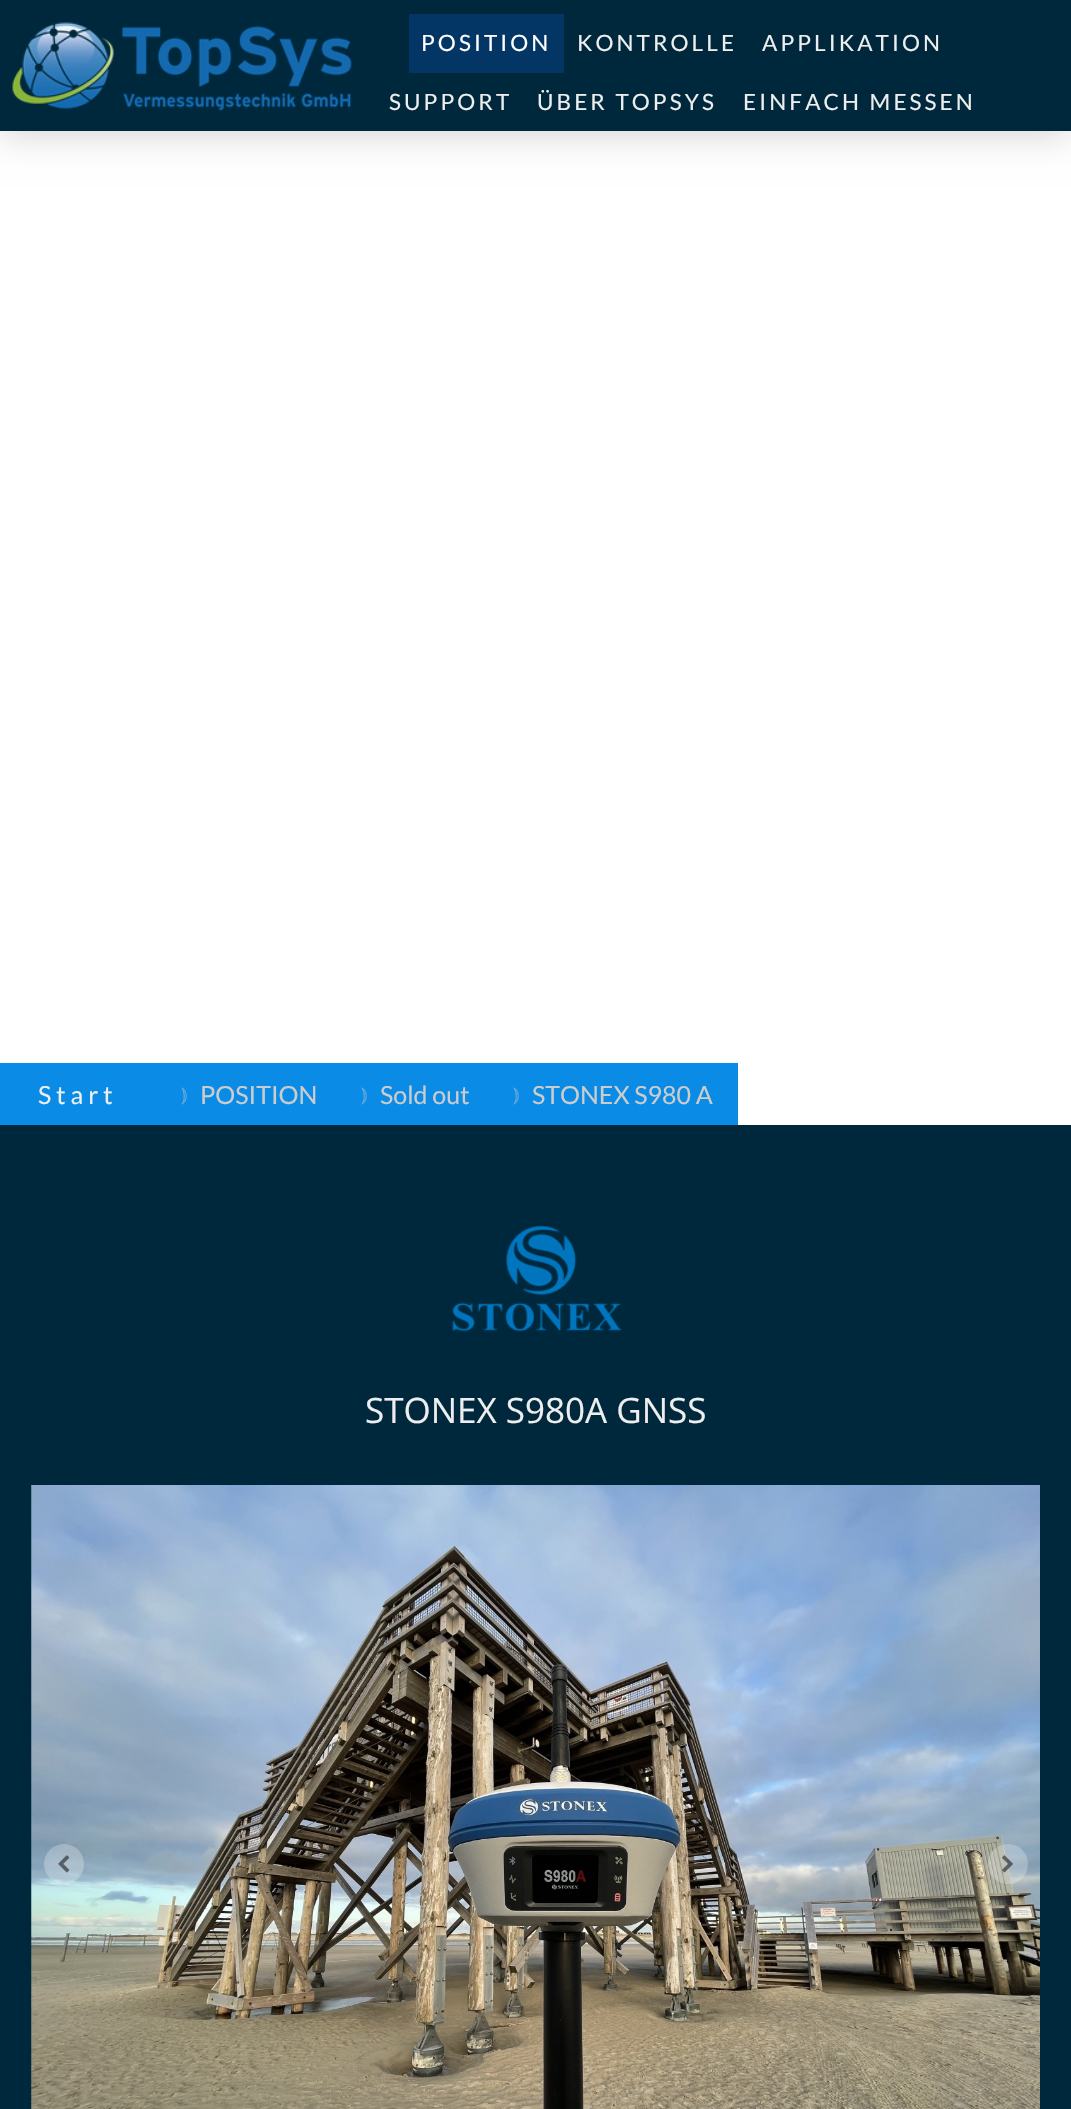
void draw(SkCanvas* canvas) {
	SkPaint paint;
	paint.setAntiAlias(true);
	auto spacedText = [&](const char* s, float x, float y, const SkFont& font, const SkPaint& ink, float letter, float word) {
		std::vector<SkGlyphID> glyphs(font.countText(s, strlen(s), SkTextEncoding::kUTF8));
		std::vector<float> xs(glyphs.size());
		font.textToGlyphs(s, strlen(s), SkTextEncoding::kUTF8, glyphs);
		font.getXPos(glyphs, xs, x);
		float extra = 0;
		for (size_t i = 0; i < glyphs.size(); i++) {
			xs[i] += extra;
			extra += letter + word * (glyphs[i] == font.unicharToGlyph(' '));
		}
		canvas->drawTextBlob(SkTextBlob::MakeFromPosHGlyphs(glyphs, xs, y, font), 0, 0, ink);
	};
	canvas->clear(0xffffffff);
	paint.setColor(0x33000000);
	paint.setMaskFilter(SkMaskFilter::MakeBlur(kNormal_SkBlurStyle, 19));
	canvas->drawRect(SkRect::MakeXYWH(0, 0, 1071, 131), paint);
	paint.setMaskFilter(nullptr);
	paint.setColor(0xff00283c);
	canvas->drawRect(SkRect::MakeXYWH(0, 0, 1071, 131), paint);
	canvas->drawImageRect(SkImages::DeferredFromEncodedData(SkData::MakeFromFileName("img1.png")), SkRect::MakeXYWH(12, 22, 340, 89), SkSamplingOptions());
	paint.setColor(0xff033664);
	canvas->drawRect(SkRect::MakeXYWH(409, 14, 155, 59), paint);
	SkFont f1(fontMgr->matchFamilyStyle("Lato", SkFontStyle::Normal()), 22.5);
	f1.setSubpixel(true);
	paint.setColor(0xffffffff);
	spacedText("POSITION", 421, 51, f1, paint, 3.1, 0);
	paint.setColor(0xffeeeeee);
	spacedText("KONTROLLE", 577, 51, f1, paint, 3.1, 0);
	spacedText("APPLIKATION", 762, 51, f1, paint, 3.1, 0);
	spacedText("SUPPORT", 389, 110, f1, paint, 3.1, 0);
	spacedText("ÜBER TOPSYS", 537, 110, f1, paint, 3.1, 0);
	spacedText("EINFACH MESSEN", 743, 110, f1, paint, 3.1, 0);
	paint.setColor(0xff00283c);
	canvas->drawRect(SkRect::MakeXYWH(0, 1125, 1071, 984), paint);
	paint.setColor(0xff0a8ce6);
	canvas->drawRect(SkRect::MakeXYWH(0, 1063, 738, 62), paint);
	SkFont f2(fontMgr->matchFamilyStyle("Lato", SkFontStyle::Normal()), 25);
	f2.setSubpixel(true);
	paint.setColor(0xffeeeeee);
	spacedText("Start", 38, 1104, f2, paint, 5, 0);
	SkFont f3(fontMgr->matchFamilyStyle("FreeSerif", SkFontStyle::Normal()), 20);
	f3.setSubpixel(true);
	paint.setColor(0xff6bacd9);
	canvas->drawString("⦆", 181, 1101, f3, paint);
	paint.setColor(0xffcccccc);
	canvas->drawString("POSITION", 200, 1104, f2, paint);
	paint.setColor(0xff6bacd9);
	canvas->drawString("⦆", 361, 1101, f3, paint);
	paint.setColor(0xffcccccc);
	canvas->drawString("Sold out", 380, 1104, f2, paint);
	paint.setColor(0xff6bacd9);
	canvas->drawString("⦆", 513, 1101, f3, paint);
	paint.setColor(0xffcccccc);
	canvas->drawString("STONEX S980 A", 532, 1104, f2, paint);
	canvas->drawImageRect(SkImages::DeferredFromEncodedData(SkData::MakeFromFileName("img2.png")), SkRect::MakeXYWH(452, 1225, 170, 107), SkSamplingOptions());
	SkFont f4(fontMgr->matchFamilyStyle("Open Sans", SkFontStyle::Normal()), 35);
	f4.setSubpixel(true);
	paint.setColor(0xffeeeeee);
	canvas->drawString("STONEX S980A GNSS", 365, 1423, f4, paint);
	canvas->drawImageRect(SkImages::DeferredFromEncodedData(SkData::MakeFromFileName("img3.png")), SkRect::MakeXYWH(31, 1485, 1009, 624), SkSamplingOptions());
	paint.setColor(0x40ffffff);
	canvas->drawCircle(64, 1864, 20, paint);
	canvas->drawImageRect(SkImages::DeferredFromEncodedData(SkData::MakeFromFileName("img4.png")), SkRect::MakeXYWH(58, 1855, 12, 18), SkSamplingOptions());
	canvas->drawCircle(1008, 1864, 20, paint);
	canvas->drawImageRect(SkImages::DeferredFromEncodedData(SkData::MakeFromFileName("img5.png")), SkRect::MakeXYWH(1002, 1855, 11, 18), SkSamplingOptions());
}
